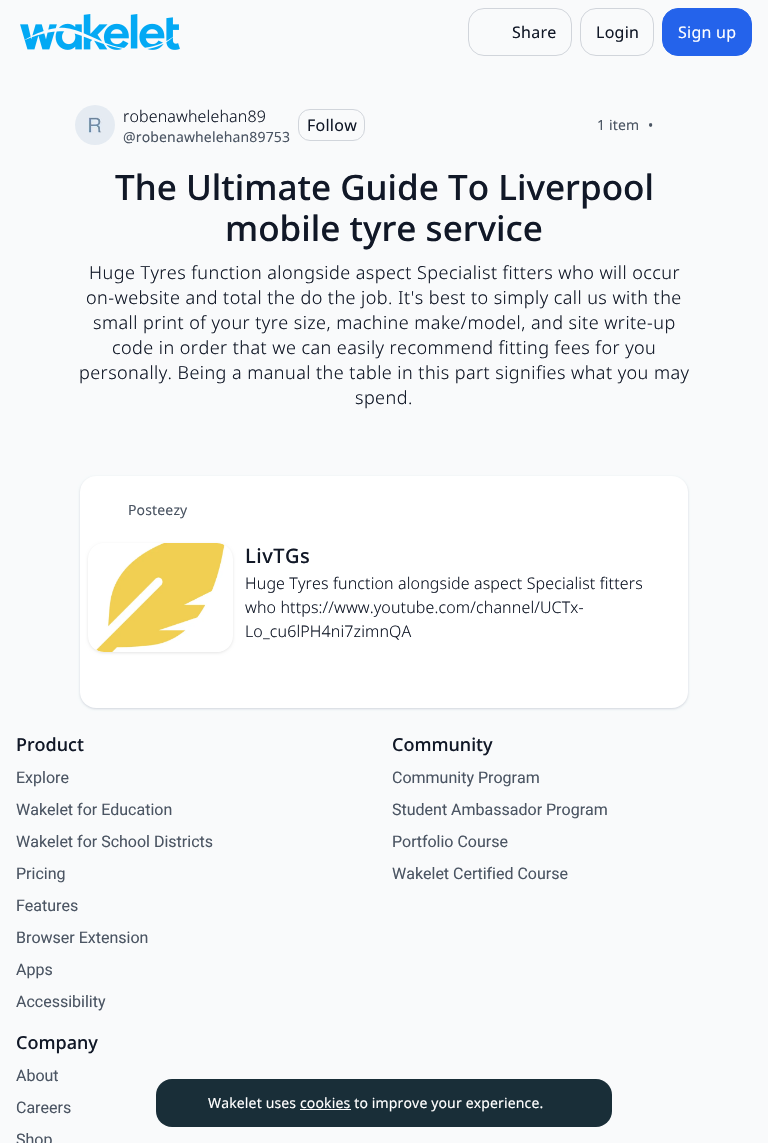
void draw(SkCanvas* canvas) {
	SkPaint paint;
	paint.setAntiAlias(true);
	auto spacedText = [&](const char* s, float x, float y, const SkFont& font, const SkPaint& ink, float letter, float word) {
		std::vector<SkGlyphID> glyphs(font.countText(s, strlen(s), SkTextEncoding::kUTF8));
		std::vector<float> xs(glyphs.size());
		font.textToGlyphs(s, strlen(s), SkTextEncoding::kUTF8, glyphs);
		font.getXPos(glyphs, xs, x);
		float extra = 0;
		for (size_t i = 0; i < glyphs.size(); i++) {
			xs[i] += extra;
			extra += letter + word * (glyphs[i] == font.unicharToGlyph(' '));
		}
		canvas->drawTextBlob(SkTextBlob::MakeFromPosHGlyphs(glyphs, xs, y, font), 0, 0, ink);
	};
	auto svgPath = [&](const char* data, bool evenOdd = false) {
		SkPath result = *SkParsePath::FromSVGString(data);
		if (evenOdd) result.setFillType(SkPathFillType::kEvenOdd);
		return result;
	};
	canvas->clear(0xfff9fafb);
	canvas->drawImageRect(SkImages::DeferredFromEncodedData(SkData::MakeFromFileName("img1.png")), SkRect::MakeXYWH(20, 14, 160, 36), SkSamplingOptions());
	paint.setStroke(true);
	paint.setStrokeWidth(1);
	paint.setColor(0xffd1d5db);
	canvas->drawRoundRect(SkRect::MakeXYWH(468.5, 8.5, 103, 47), 15.5, 15.5, paint);
	SkFont f1(fontMgr->matchFamilyStyle("Noto Sans", SkFontStyle::Normal()), 16);
	f1.setSubpixel(true);
	paint.setStroke(false);
	paint.setColor(0xff111827);
	spacedText("Share", 512, 38, f1, paint, 0.25, 0);
	paint.setStroke(true);
	paint.setColor(0xffd1d5db);
	canvas->drawRoundRect(SkRect::MakeXYWH(580.5, 8.5, 73, 47), 15.5, 15.5, paint);
	paint.setStroke(false);
	paint.setColor(0xff111827);
	spacedText("Login", 596, 38, f1, paint, 0.25, 0);
	paint.setColor(0xff2463eb);
	canvas->drawRoundRect(SkRect::MakeXYWH(662.5, 8.5, 89, 47), 15.5, 15.5, paint);
	paint.setStroke(true);
	canvas->drawRoundRect(SkRect::MakeXYWH(662.5, 8.5, 89, 47), 15.5, 15.5, paint);
	paint.setStroke(false);
	paint.setColor(0xffffffff);
	spacedText("Sign up", 678, 38, f1, paint, 0.25, 0);
	canvas->drawImageRect(SkImages::DeferredFromEncodedData(SkData::MakeFromFileName("img2.png")), SkRect::MakeXYWH(75, 105, 40, 40), SkSamplingOptions());
	SkFont f2(fontMgr->matchFamilyStyle("Noto Sans", SkFontStyle(300, SkFontStyle::kNormal_Width, SkFontStyle::kUpright_Slant)), 16);
	f2.setSubpixel(true);
	paint.setColor(0xff111827);
	spacedText("robenawhelehan89", 123, 122, f2, paint, 0.13, 0);
	SkFont f3(fontMgr->matchFamilyStyle("Noto Sans", SkFontStyle::Normal()), 14);
	f3.setSubpixel(true);
	paint.setColor(0xff4b5563);
	spacedText("@robenawhelehan89753", 123, 142, f3, paint, 0.15, 0);
	paint.setStroke(true);
	paint.setColor(0xffd1d5db);
	canvas->drawRoundRect(SkRect::MakeXYWH(298.5, 109.5, 66, 31), 11.5, 11.5, paint);
	paint.setStroke(false);
	paint.setColor(0xff111827);
	spacedText("Follow", 307, 131, f1, paint, 0.25, 0);
	paint.setColor(0xff4b5563);
	spacedText("1 item", 597, 130, f3, paint, 0.15, 0);
	spacedText("•", 648, 130, f3, paint, 0.15, 0);
	SkFont f4(fontMgr->matchFamilyStyle("Noto Sans", SkFontStyle(500, SkFontStyle::kNormal_Width, SkFontStyle::kUpright_Slant)), 35);
	f4.setSubpixel(true);
	paint.setColor(0xff111827);
	canvas->drawString("The Ultimate Guide To Liverpool", 115, 200, f4, paint);
	canvas->drawString("mobile tyre service", 225, 241, f4, paint);
	SkFont f5(fontMgr->matchFamilyStyle("Noto Sans", SkFontStyle(300, SkFontStyle::kNormal_Width, SkFontStyle::kUpright_Slant)), 18);
	f5.setSubpixel(true);
	spacedText("Huge Tyres function alongside aspect Specialist fitters who will occur", 89, 279, f5, paint, 0.45, 0);
	spacedText("on-website and total the do the job. It's best to simply call us with the", 86, 304, f5, paint, 0.45, 0);
	spacedText("small print of your tyre size, machine make/model, and site write-up", 93, 329, f5, paint, 0.45, 0);
	spacedText("code in order that we can easily recommend fitting fees for you", 112, 354, f5, paint, 0.45, 0);
	spacedText("personally. Being a manual the table in this part signifies what you may", 79, 379, f5, paint, 0.45, 0);
	spacedText("spend.", 355, 404, f5, paint, 0.45, 0);
	paint.setColor(0x0f00183d);
	paint.setMaskFilter(SkMaskFilter::MakeBlur(kNormal_SkBlurStyle, 1));
	canvas->drawRoundRect(SkRect::MakeXYWH(80, 477, 608, 232), 16, 16, paint);
	paint.setMaskFilter(nullptr);
	paint.setColor(0x1a00183d);
	paint.setMaskFilter(SkMaskFilter::MakeBlur(kNormal_SkBlurStyle, 1.5));
	canvas->drawRoundRect(SkRect::MakeXYWH(80, 477, 608, 232), 16, 16, paint);
	paint.setMaskFilter(nullptr);
	paint.setColor(0xffffffff);
	canvas->drawRoundRect(SkRect::MakeXYWH(80, 476, 608, 232), 16, 16, paint);
	paint.setColor(0xff4b5563);
	spacedText("Posteezy", 128, 515, f3, paint, 0.15, 0);
	canvas->save();
	canvas->clipPath(svgPath("M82 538H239V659H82ZM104 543H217C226 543 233 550 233 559V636C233 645 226 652 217 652H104C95 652 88 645 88 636V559C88 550 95 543 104 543Z", true), true);
	paint.setColor(0x1a000000);
	paint.setMaskFilter(SkMaskFilter::MakeBlur(kNormal_SkBlurStyle, 1.5));
	canvas->drawRoundRect(SkRect::MakeXYWH(88, 544, 145, 109), 16, 16, paint);
	paint.setMaskFilter(nullptr);
	canvas->restore();
	canvas->drawImageRect(SkImages::DeferredFromEncodedData(SkData::MakeFromFileName("img3.png")), SkRect::MakeXYWH(91, 543, 134, 109), SkSamplingOptions());
	SkFont f6(fontMgr->matchFamilyStyle("Noto Sans", SkFontStyle(500, SkFontStyle::kNormal_Width, SkFontStyle::kUpright_Slant)), 20);
	f6.setSubpixel(true);
	paint.setColor(0xff111827);
	spacedText("LivTGs", 245, 563, f6, paint, 0.5, 0);
	spacedText("Huge Tyres function alongside aspect Specialist fitters", 245, 589, f2, paint, 0.13, 0);
	spacedText("who https://www.youtube.com/channel/UCTx-", 245, 613, f2, paint, 0.13, 0);
	spacedText("Lo_cu6lPH4ni7zimnQA", 245, 637, f2, paint, 0.13, 0);
	SkFont f7(fontMgr->matchFamilyStyle("Noto Sans", SkFontStyle(500, SkFontStyle::kNormal_Width, SkFontStyle::kUpright_Slant)), 18);
	f7.setSubpixel(true);
	canvas->drawString("Product", 16, 751, f7, paint);
	SkFont f8(fontMgr->matchFamilyStyle("Roboto", SkFontStyle::Normal()), 16);
	f8.setSubpixel(true);
	paint.setColor(0xff4b5563);
	canvas->drawString("Explore", 16, 783, f8, paint);
	canvas->drawString("Wakelet for Education", 16, 815, f8, paint);
	canvas->drawString("Wakelet for School Districts", 16, 847, f8, paint);
	canvas->drawString("Pricing", 16, 879, f8, paint);
	canvas->drawString("Features", 16, 911, f8, paint);
	canvas->drawString("Browser Extension", 16, 943, f8, paint);
	canvas->drawString("Apps", 16, 975, f8, paint);
	canvas->drawString("Accessibility", 16, 1007, f8, paint);
	paint.setColor(0xff111827);
	canvas->drawString("Community", 392, 751, f7, paint);
	paint.setColor(0xff4b5563);
	canvas->drawString("Community Program", 392, 783, f8, paint);
	canvas->drawString("Student Ambassador Program", 392, 815, f8, paint);
	canvas->drawString("Portfolio Course", 392, 847, f8, paint);
	canvas->drawString("Wakelet Certified Course", 392, 879, f8, paint);
	paint.setColor(0xff111827);
	canvas->drawString("Company", 16, 1049, f7, paint);
	paint.setColor(0xff4b5563);
	canvas->drawString("About", 16, 1081, f8, paint);
	canvas->drawString("Careers", 16, 1113, f8, paint);
	canvas->drawString("Shop", 16, 1145, f8, paint);
	paint.setColor(0xff192e38);
	canvas->drawRoundRect(SkRect::MakeXYWH(156, 1079, 456, 48), 16, 16, paint);
	paint.setColor(0xffffffff);
	spacedText("Wakelet uses cookies to improve your experience.", 208, 1108, f3, paint, 0.15, 0);
	canvas->drawRect(SkRect::MakeXYWH(300, 1109, 51, 1), paint);
}
